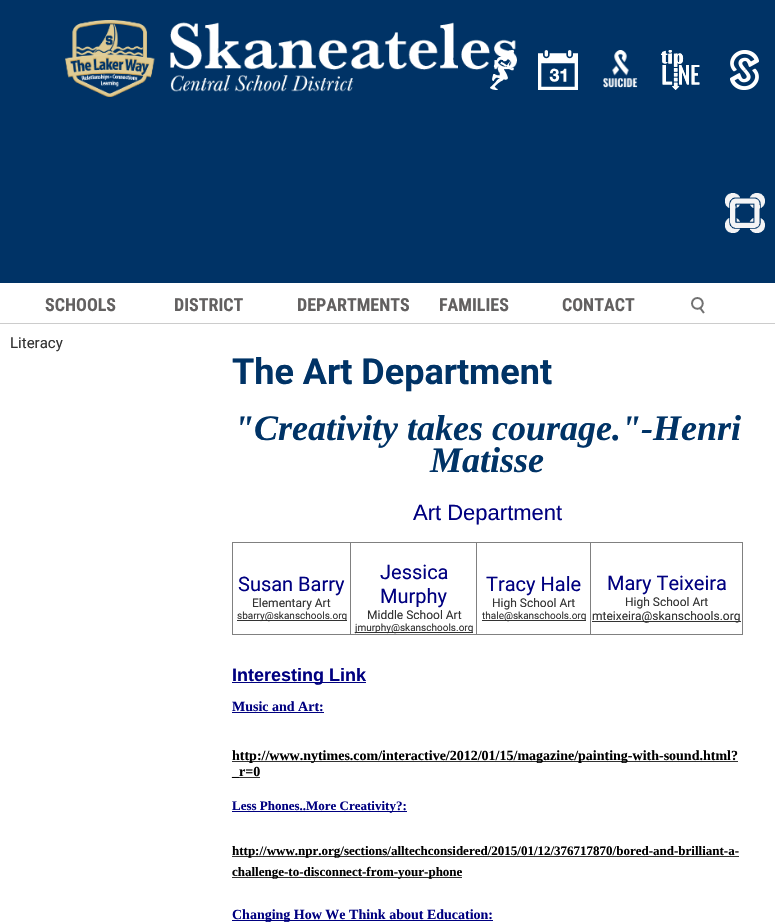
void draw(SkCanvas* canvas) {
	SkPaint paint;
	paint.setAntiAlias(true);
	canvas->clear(0xffffffff);
	paint.setColor(0xff003366);
	canvas->drawRect(SkRect::MakeXYWH(0, 0, 775, 283), paint);
	canvas->drawImageRect(SkImages::DeferredFromEncodedData(SkData::MakeFromFileName("img1.png")), SkRect::MakeXYWH(65, 20, 452, 77), SkSamplingOptions());
	canvas->drawImageRect(SkImages::DeferredFromEncodedData(SkData::MakeFromFileName("img2.png")), SkRect::MakeXYWH(490, 50, 25, 40), SkSamplingOptions());
	canvas->drawImageRect(SkImages::DeferredFromEncodedData(SkData::MakeFromFileName("img3.png")), SkRect::MakeXYWH(538, 50, 40, 40), SkSamplingOptions());
	canvas->drawImageRect(SkImages::DeferredFromEncodedData(SkData::MakeFromFileName("img4.png")), SkRect::MakeXYWH(603, 50, 35, 38), SkSamplingOptions());
	canvas->drawImageRect(SkImages::DeferredFromEncodedData(SkData::MakeFromFileName("img5.png")), SkRect::MakeXYWH(661, 50, 39, 40), SkSamplingOptions());
	canvas->drawImageRect(SkImages::DeferredFromEncodedData(SkData::MakeFromFileName("img6.png")), SkRect::MakeXYWH(730, 50, 29, 40), SkSamplingOptions());
	canvas->drawImageRect(SkImages::DeferredFromEncodedData(SkData::MakeFromFileName("img7.png")), SkRect::MakeXYWH(725, 193, 40, 40), SkSamplingOptions());
	SkFont f1(fontMgr->matchFamilyStyle("Roboto Condensed", SkFontStyle::Bold()), 18);
	f1.setSubpixel(true);
	paint.setColor(0xff626060);
	canvas->drawString("SCHOOLS", 45, 311, f1, paint);
	canvas->drawString("DISTRICT", 174, 311, f1, paint);
	canvas->drawString("DEPARTMENTS", 297, 311, f1, paint);
	canvas->drawString("FAMILIES", 439, 311, f1, paint);
	canvas->drawString("CONTACT", 562, 311, f1, paint);
	canvas->drawImageRect(SkImages::DeferredFromEncodedData(SkData::MakeFromFileName("img8.png")), SkRect::MakeXYWH(691, 297, 14, 17), SkSamplingOptions());
	paint.setColor(0xffcccccc);
	canvas->drawRect(SkRect::MakeXYWH(0, 323, 775, 1), paint);
	SkFont f2(fontMgr->matchFamilyStyle("Roboto", SkFontStyle::Normal()), 15);
	f2.setSubpixel(true);
	paint.setColor(0xff333333);
	canvas->drawString("Literacy", 10, 348, f2, paint);
	SkFont f3(fontMgr->matchFamilyStyle("Roboto", SkFontStyle::Bold()), 36);
	f3.setSubpixel(true);
	paint.setColor(0xff003366);
	canvas->drawString("The Art Department", 232, 384, f3, paint);
	SkFont f4(fontMgr->matchFamilyStyle("Liberation Serif", SkFontStyle::BoldItalic()), 36);
	f4.setSubpixel(true);
	canvas->drawString("\"Creativity takes courage.\"-Henri", 234, 440, f4, paint);
	canvas->drawString("Matisse", 430, 472, f4, paint);
	SkFont f5(fontMgr->matchFamilyStyle("Liberation Sans", SkFontStyle::Normal()), 22);
	f5.setSubpixel(true);
	paint.setColor(0xff000080);
	canvas->drawString("Art Department", 413, 520, f5, paint);
	paint.setColor(0xff808080);
	canvas->drawRect(SkRect::MakeXYWH(232, 542, 511, 1), paint);
	canvas->drawRect(SkRect::MakeXYWH(742, 542, 1, 93), paint);
	canvas->drawRect(SkRect::MakeXYWH(232, 634, 511, 1), paint);
	canvas->drawRect(SkRect::MakeXYWH(232, 542, 1, 93), paint);
	SkFont f6(fontMgr->matchFamilyStyle("Roboto", SkFontStyle::Normal()), 20);
	f6.setSubpixel(true);
	paint.setColor(0xff000080);
	canvas->drawString("Susan Barry", 238, 591, f6, paint);
	SkFont f7(fontMgr->matchFamilyStyle("Roboto", SkFontStyle::Normal()), 12);
	f7.setSubpixel(true);
	paint.setColor(0xff333333);
	canvas->drawString("Elementary Art", 252, 607, f7, paint);
	canvas->drawRect(SkRect::MakeXYWH(237, 620, 110, 1), paint);
	SkFont f8(fontMgr->matchFamilyStyle("Roboto", SkFontStyle::Normal()), 10);
	f8.setSubpixel(true);
	canvas->drawString("sbarry@skanschools.org", 237, 619, f8, paint);
	paint.setColor(0xff808080);
	canvas->drawRect(SkRect::MakeXYWH(350, 542, 1, 93), paint);
	paint.setColor(0xff000080);
	canvas->drawString("Jessica", 380, 579, f6, paint);
	canvas->drawString("Murphy", 380, 603, f6, paint);
	paint.setColor(0xff333333);
	canvas->drawString("Middle School Art", 367, 619, f7, paint);
	canvas->drawRect(SkRect::MakeXYWH(355, 632, 118, 1), paint);
	canvas->drawString("jmurphy@skanschools.org", 355, 631, f8, paint);
	paint.setColor(0xff808080);
	canvas->drawRect(SkRect::MakeXYWH(476, 542, 1, 93), paint);
	paint.setColor(0xff000080);
	canvas->drawString("Tracy Hale", 486, 591, f6, paint);
	paint.setColor(0xff333333);
	canvas->drawString("High School Art", 492, 607, f7, paint);
	canvas->drawRect(SkRect::MakeXYWH(482, 620, 104, 1), paint);
	canvas->drawString("thale@skanschools.org", 482, 619, f8, paint);
	paint.setColor(0xff808080);
	canvas->drawRect(SkRect::MakeXYWH(590, 542, 1, 93), paint);
	paint.setColor(0xff000080);
	canvas->drawString("Mary Teixeira", 607, 590, f6, paint);
	paint.setColor(0xff333333);
	canvas->drawString("High School Art", 625, 606, f7, paint);
	canvas->drawRect(SkRect::MakeXYWH(592, 621, 149, 1), paint);
	canvas->drawString("mteixeira@skanschools.org", 592, 620, f7, paint);
	paint.setColor(0xff000080);
	canvas->drawRect(SkRect::MakeXYWH(232, 682, 134, 1), paint);
	SkFont f9(fontMgr->matchFamilyStyle("Liberation Sans", SkFontStyle::Bold()), 18);
	f9.setSubpixel(true);
	canvas->drawString("Interesting Link", 232, 681, f9, paint);
	SkFont f10(fontMgr->matchFamilyStyle("Liberation Serif", SkFontStyle::Bold()), 14);
	f10.setSubpixel(true);
	canvas->drawString("Music and Art:", 232, 711, f10, paint);
	canvas->drawRect(SkRect::MakeXYWH(232, 712, 92, 1), paint);
	paint.setColor(0xff333333);
	canvas->drawRect(SkRect::MakeXYWH(232, 761, 506, 1), paint);
	paint.setColor(0xff000000);
	canvas->drawString("http://www.nytimes.com/interactive/2012/01/15/magazine/painting-with-sound.html?", 232, 760, f10, paint);
	paint.setColor(0xff333333);
	canvas->drawRect(SkRect::MakeXYWH(232, 777, 28, 1), paint);
	paint.setColor(0xff000000);
	canvas->drawString("_r=0", 232, 776, f10, paint);
	paint.setColor(0xff000080);
	canvas->drawRect(SkRect::MakeXYWH(232, 811, 175, 1), paint);
	SkFont f11(fontMgr->matchFamilyStyle("Liberation Serif", SkFontStyle::Bold()), 13);
	f11.setSubpixel(true);
	canvas->drawString("Less Phones..More Creativity?:", 232, 810, f11, paint);
	paint.setColor(0xff333333);
	canvas->drawRect(SkRect::MakeXYWH(232, 856, 507, 1), paint);
	paint.setColor(0xff000000);
	canvas->drawString("http://www.npr.org/sections/alltechconsidered/2015/01/12/376717870/bored-and-brilliant-a-", 232, 855, f11, paint);
	paint.setColor(0xff333333);
	canvas->drawRect(SkRect::MakeXYWH(232, 877, 230, 1), paint);
	paint.setColor(0xff000000);
	canvas->drawString("challenge-to-disconnect-from-your-phone", 232, 876, f11, paint);
	paint.setColor(0xff000080);
	canvas->drawRect(SkRect::MakeXYWH(232, 920, 261, 1), paint);
	canvas->drawString("Changing How We Think about Education:", 232, 919, f10, paint);
}
